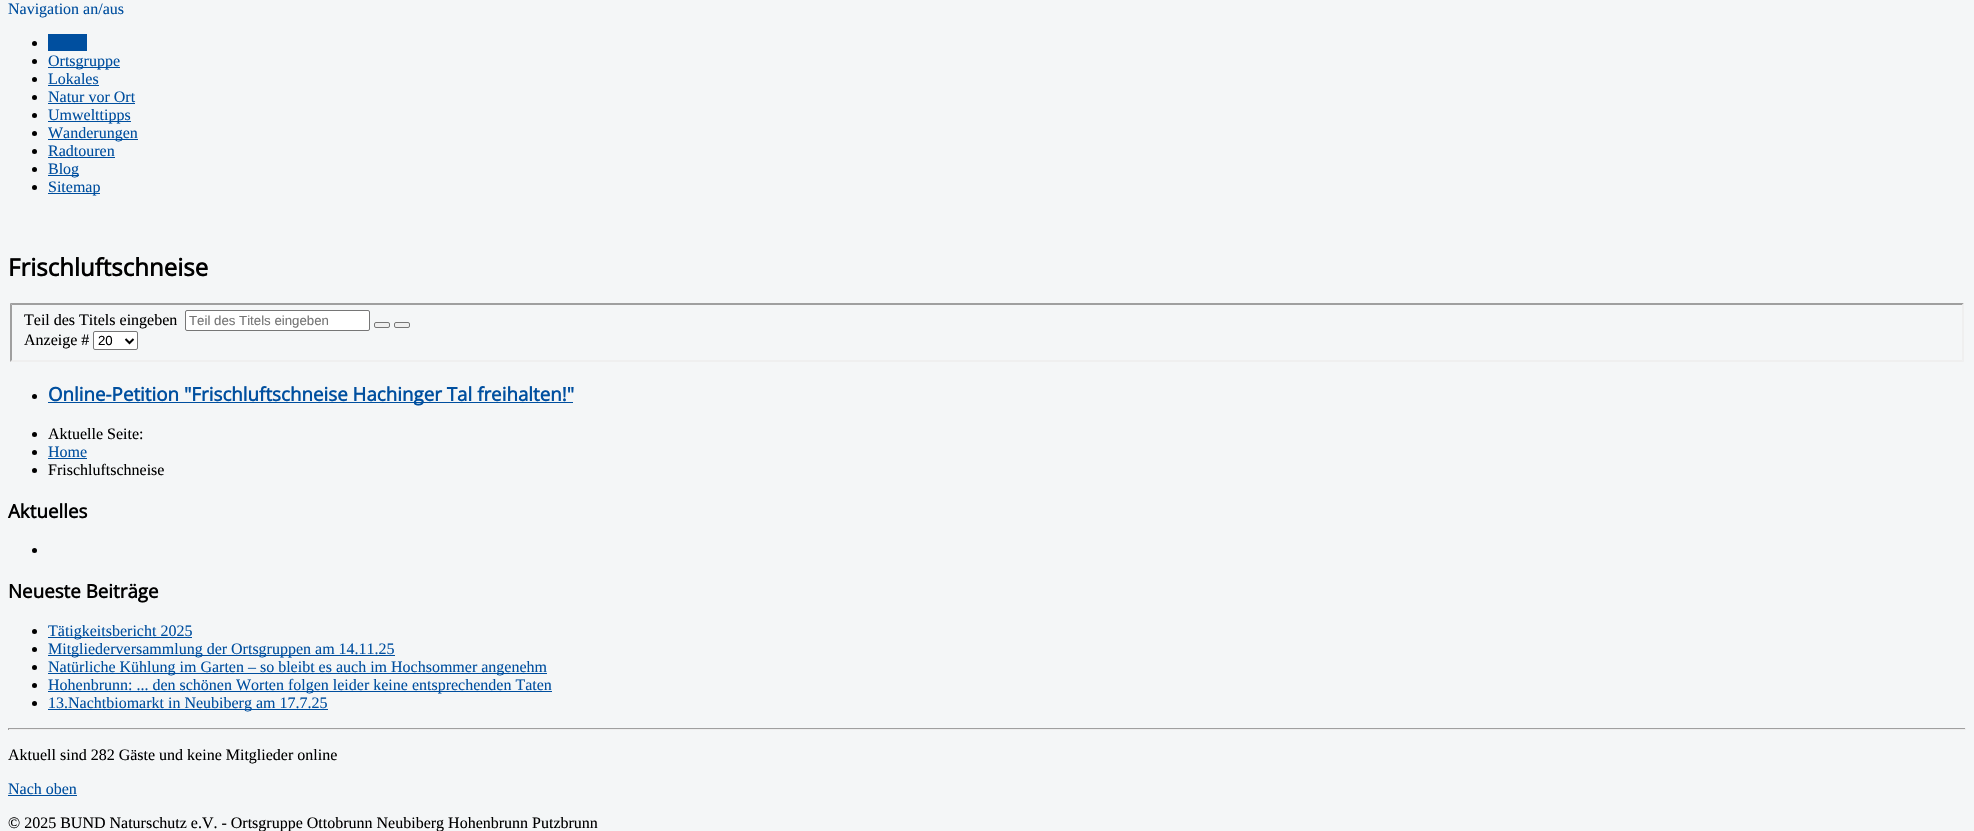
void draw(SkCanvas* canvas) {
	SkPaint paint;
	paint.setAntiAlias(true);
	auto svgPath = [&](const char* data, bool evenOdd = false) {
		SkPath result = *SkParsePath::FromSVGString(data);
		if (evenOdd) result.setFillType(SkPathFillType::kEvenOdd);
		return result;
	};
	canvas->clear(0xfff4f6f7);
	SkFont f1(fontMgr->matchFamilyStyle("Liberation Serif", SkFontStyle::Normal()), 16);
	f1.setSubpixel(true);
	paint.setColor(0xff004f9f);
	canvas->drawString("Navigation an/aus", 8, 14, f1, paint);
	paint.setColor(0xff000000);
	canvas->drawCircle(34.5, 43.5, 2.5, paint);
	paint.setColor(0xff004f9f);
	canvas->drawRect(SkRect::MakeXYWH(48, 34, 39, 17), paint);
	paint.setColor(0xff000000);
	canvas->drawCircle(34.5, 61.5, 2.5, paint);
	paint.setColor(0xff004f9f);
	canvas->drawRect(SkRect::MakeXYWH(48, 67, 72, 1), paint);
	canvas->drawString("Ortsgruppe", 48, 66, f1, paint);
	paint.setColor(0xff000000);
	canvas->drawCircle(34.5, 79.5, 2.5, paint);
	paint.setColor(0xff004f9f);
	canvas->drawString("Lokales", 48, 84, f1, paint);
	canvas->drawRect(SkRect::MakeXYWH(48, 85, 51, 1), paint);
	paint.setColor(0xff000000);
	canvas->drawCircle(34.5, 97.5, 2.5, paint);
	paint.setColor(0xff004f9f);
	canvas->drawString("Natur vor Ort", 48, 102, f1, paint);
	canvas->drawRect(SkRect::MakeXYWH(48, 103, 87, 1), paint);
	paint.setColor(0xff000000);
	canvas->drawCircle(34.5, 115.5, 2.5, paint);
	paint.setColor(0xff004f9f);
	canvas->drawRect(SkRect::MakeXYWH(48, 121, 83, 1), paint);
	canvas->drawString("Umwelttipps", 48, 120, f1, paint);
	paint.setColor(0xff000000);
	canvas->drawCircle(34.5, 133.5, 2.5, paint);
	paint.setColor(0xff004f9f);
	canvas->drawRect(SkRect::MakeXYWH(48, 139, 90, 1), paint);
	canvas->drawString("Wanderungen", 48, 138, f1, paint);
	paint.setColor(0xff000000);
	canvas->drawCircle(34.5, 151.5, 2.5, paint);
	paint.setColor(0xff004f9f);
	canvas->drawString("Radtouren", 48, 156, f1, paint);
	canvas->drawRect(SkRect::MakeXYWH(48, 157, 67, 1), paint);
	paint.setColor(0xff000000);
	canvas->drawCircle(34.5, 169.5, 2.5, paint);
	paint.setColor(0xff004f9f);
	canvas->drawRect(SkRect::MakeXYWH(48, 175, 31, 1), paint);
	canvas->drawString("Blog", 48, 174, f1, paint);
	paint.setColor(0xff000000);
	canvas->drawCircle(34.5, 187.5, 2.5, paint);
	paint.setColor(0xff004f9f);
	canvas->drawRect(SkRect::MakeXYWH(48, 193, 52, 1), paint);
	canvas->drawString("Sitemap", 48, 192, f1, paint);
	SkFont f2(fontMgr->matchFamilyStyle("Open Sans", SkFontStyle::Bold()), 24);
	f2.setSubpixel(true);
	paint.setColor(0xff000000);
	canvas->drawString("Frischluftschneise", 8, 276, f2, paint);
	paint.setColor(0xff9f9f9f);
	canvas->drawPath(svgPath("M10 303H1964L1962 305H12Z"), paint);
	paint.setColor(0xffefefef);
	canvas->drawPath(svgPath("M1964 303V362L1962 360V305Z"), paint);
	canvas->drawPath(svgPath("M1964 362H10L12 360H1962Z"), paint);
	paint.setColor(0xff9f9f9f);
	canvas->drawPath(svgPath("M10 362V303L12 305V360Z"), paint);
	paint.setColor(0xff000000);
	canvas->drawString("Teil des Titels eingeben", 24, 325, f1, paint);
	paint.setColor(0xffffffff);
	canvas->drawRoundRect(SkRect::MakeXYWH(185.5, 310.5, 184, 20), 1.5, 1.5, paint);
	paint.setStroke(true);
	paint.setStrokeWidth(1);
	paint.setColor(0xff767676);
	canvas->drawRoundRect(SkRect::MakeXYWH(185.5, 310.5, 184, 20), 1.5, 1.5, paint);
	SkFont f3(fontMgr->matchFamilyStyle("Liberation Sans", SkFontStyle::Normal()), 13.25);
	f3.setSubpixel(true);
	paint.setStroke(false);
	paint.setColor(0xff757575);
	canvas->drawString("Teil des Titels eingeben", 189, 325, f3, paint);
	paint.setColor(0xffefefef);
	canvas->drawRoundRect(SkRect::MakeXYWH(374.5, 322.5, 15, 5), 1.5, 1.5, paint);
	paint.setStroke(true);
	paint.setColor(0xff767676);
	canvas->drawRoundRect(SkRect::MakeXYWH(374.5, 322.5, 15, 5), 1.5, 1.5, paint);
	paint.setStroke(false);
	paint.setColor(0xffefefef);
	canvas->drawRoundRect(SkRect::MakeXYWH(394.5, 322.5, 15, 5), 1.5, 1.5, paint);
	paint.setStroke(true);
	paint.setColor(0xff767676);
	canvas->drawRoundRect(SkRect::MakeXYWH(394.5, 322.5, 15, 5), 1.5, 1.5, paint);
	paint.setStroke(false);
	paint.setColor(0xff000000);
	canvas->drawString("Anzeige #", 24, 345, f1, paint);
	paint.setColor(0xffffffff);
	canvas->drawRoundRect(SkRect::MakeXYWH(93.5, 331.5, 44, 18), 1.5, 1.5, paint);
	paint.setStroke(true);
	paint.setColor(0xff767676);
	canvas->drawRoundRect(SkRect::MakeXYWH(93.5, 331.5, 44, 18), 1.5, 1.5, paint);
	paint.setStrokeWidth(2);
	paint.setColor(0xff000000);
	canvas->drawPath(svgPath("M125.5 339L129.5 343L133.5 339"), paint);
	paint.setStroke(false);
	canvas->drawString("20", 98, 345, f3, paint);
	canvas->drawCircle(34.5, 396.5, 2.5, paint);
	paint.setColor(0xff004f9f);
	canvas->drawRect(SkRect::MakeXYWH(48, 402, 525, 1), paint);
	SkFont f4(fontMgr->matchFamilyStyle("Open Sans", SkFontStyle::Bold()), 18.75);
	f4.setSubpixel(true);
	canvas->drawString("Online-Petition \"Frischluftschneise Hachinger Tal freihalten!\"", 48, 401, f4, paint);
	paint.setColor(0xff000000);
	canvas->drawCircle(34.5, 434.5, 2.5, paint);
	canvas->drawString("Aktuelle Seite:", 48, 439, f1, paint);
	canvas->drawCircle(34.5, 452.5, 2.5, paint);
	paint.setColor(0xff004f9f);
	canvas->drawString("Home", 48, 457, f1, paint);
	canvas->drawRect(SkRect::MakeXYWH(48, 458, 39, 1), paint);
	paint.setColor(0xff000000);
	canvas->drawCircle(34.5, 470.5, 2.5, paint);
	canvas->drawString("Frischluftschneise", 48, 475, f1, paint);
	canvas->drawString("Aktuelles", 8, 518, f4, paint);
	canvas->drawCircle(34.5, 550.5, 2.5, paint);
	canvas->drawString("Neueste Beiträge", 8, 598, f4, paint);
	canvas->drawCircle(34.5, 631.5, 2.5, paint);
	paint.setColor(0xff004f9f);
	canvas->drawRect(SkRect::MakeXYWH(48, 637, 144, 1), paint);
	canvas->drawString("Tätigkeitsbericht 2025", 48, 636, f1, paint);
	paint.setColor(0xff000000);
	canvas->drawCircle(34.5, 649.5, 2.5, paint);
	paint.setColor(0xff004f9f);
	canvas->drawRect(SkRect::MakeXYWH(48, 655, 347, 1), paint);
	canvas->drawString("Mitgliederversammlung der Ortsgruppen am 14.11.25", 48, 654, f1, paint);
	paint.setColor(0xff000000);
	canvas->drawCircle(34.5, 667.5, 2.5, paint);
	paint.setColor(0xff004f9f);
	canvas->drawRect(SkRect::MakeXYWH(48, 673, 499, 1), paint);
	canvas->drawString("Natürliche Kühlung im Garten – so bleibt es auch im Hochsommer angenehm", 48, 672, f1, paint);
	paint.setColor(0xff000000);
	canvas->drawCircle(34.5, 685.5, 2.5, paint);
	paint.setColor(0xff004f9f);
	canvas->drawRect(SkRect::MakeXYWH(48, 691, 504, 1), paint);
	canvas->drawString("Hohenbrunn: ... den schönen Worten folgen leider keine entsprechenden Taten", 48, 690, f1, paint);
	paint.setColor(0xff000000);
	canvas->drawCircle(34.5, 703.5, 2.5, paint);
	paint.setColor(0xff004f9f);
	canvas->drawRect(SkRect::MakeXYWH(48, 709, 280, 1), paint);
	canvas->drawString("13.Nachtbiomarkt in Neubiberg am 17.7.25", 48, 708, f1, paint);
	paint.setColor(0xff9f9f9f);
	canvas->drawRect(SkRect::MakeXYWH(8, 728, 1958, 1), paint);
	paint.setColor(0xffeeeeee);
	canvas->drawRect(SkRect::MakeXYWH(1965, 728, 1, 2), paint);
	canvas->drawRect(SkRect::MakeXYWH(8, 729, 1958, 1), paint);
	paint.setColor(0xff9f9f9f);
	canvas->drawRect(SkRect::MakeXYWH(8, 728, 1, 2), paint);
	paint.setColor(0xff000000);
	canvas->drawString("Aktuell sind 282 Gäste und keine Mitglieder online", 8, 760, f1, paint);
	paint.setColor(0xff004f9f);
	canvas->drawString("Nach oben", 8, 794, f1, paint);
	canvas->drawRect(SkRect::MakeXYWH(8, 795, 69, 1), paint);
	paint.setColor(0xff000000);
	canvas->drawString("© 2025 BUND Naturschutz e.V. - Ortsgruppe Ottobrunn Neubiberg Hohenbrunn Putzbrunn", 8, 828, f1, paint);
}
